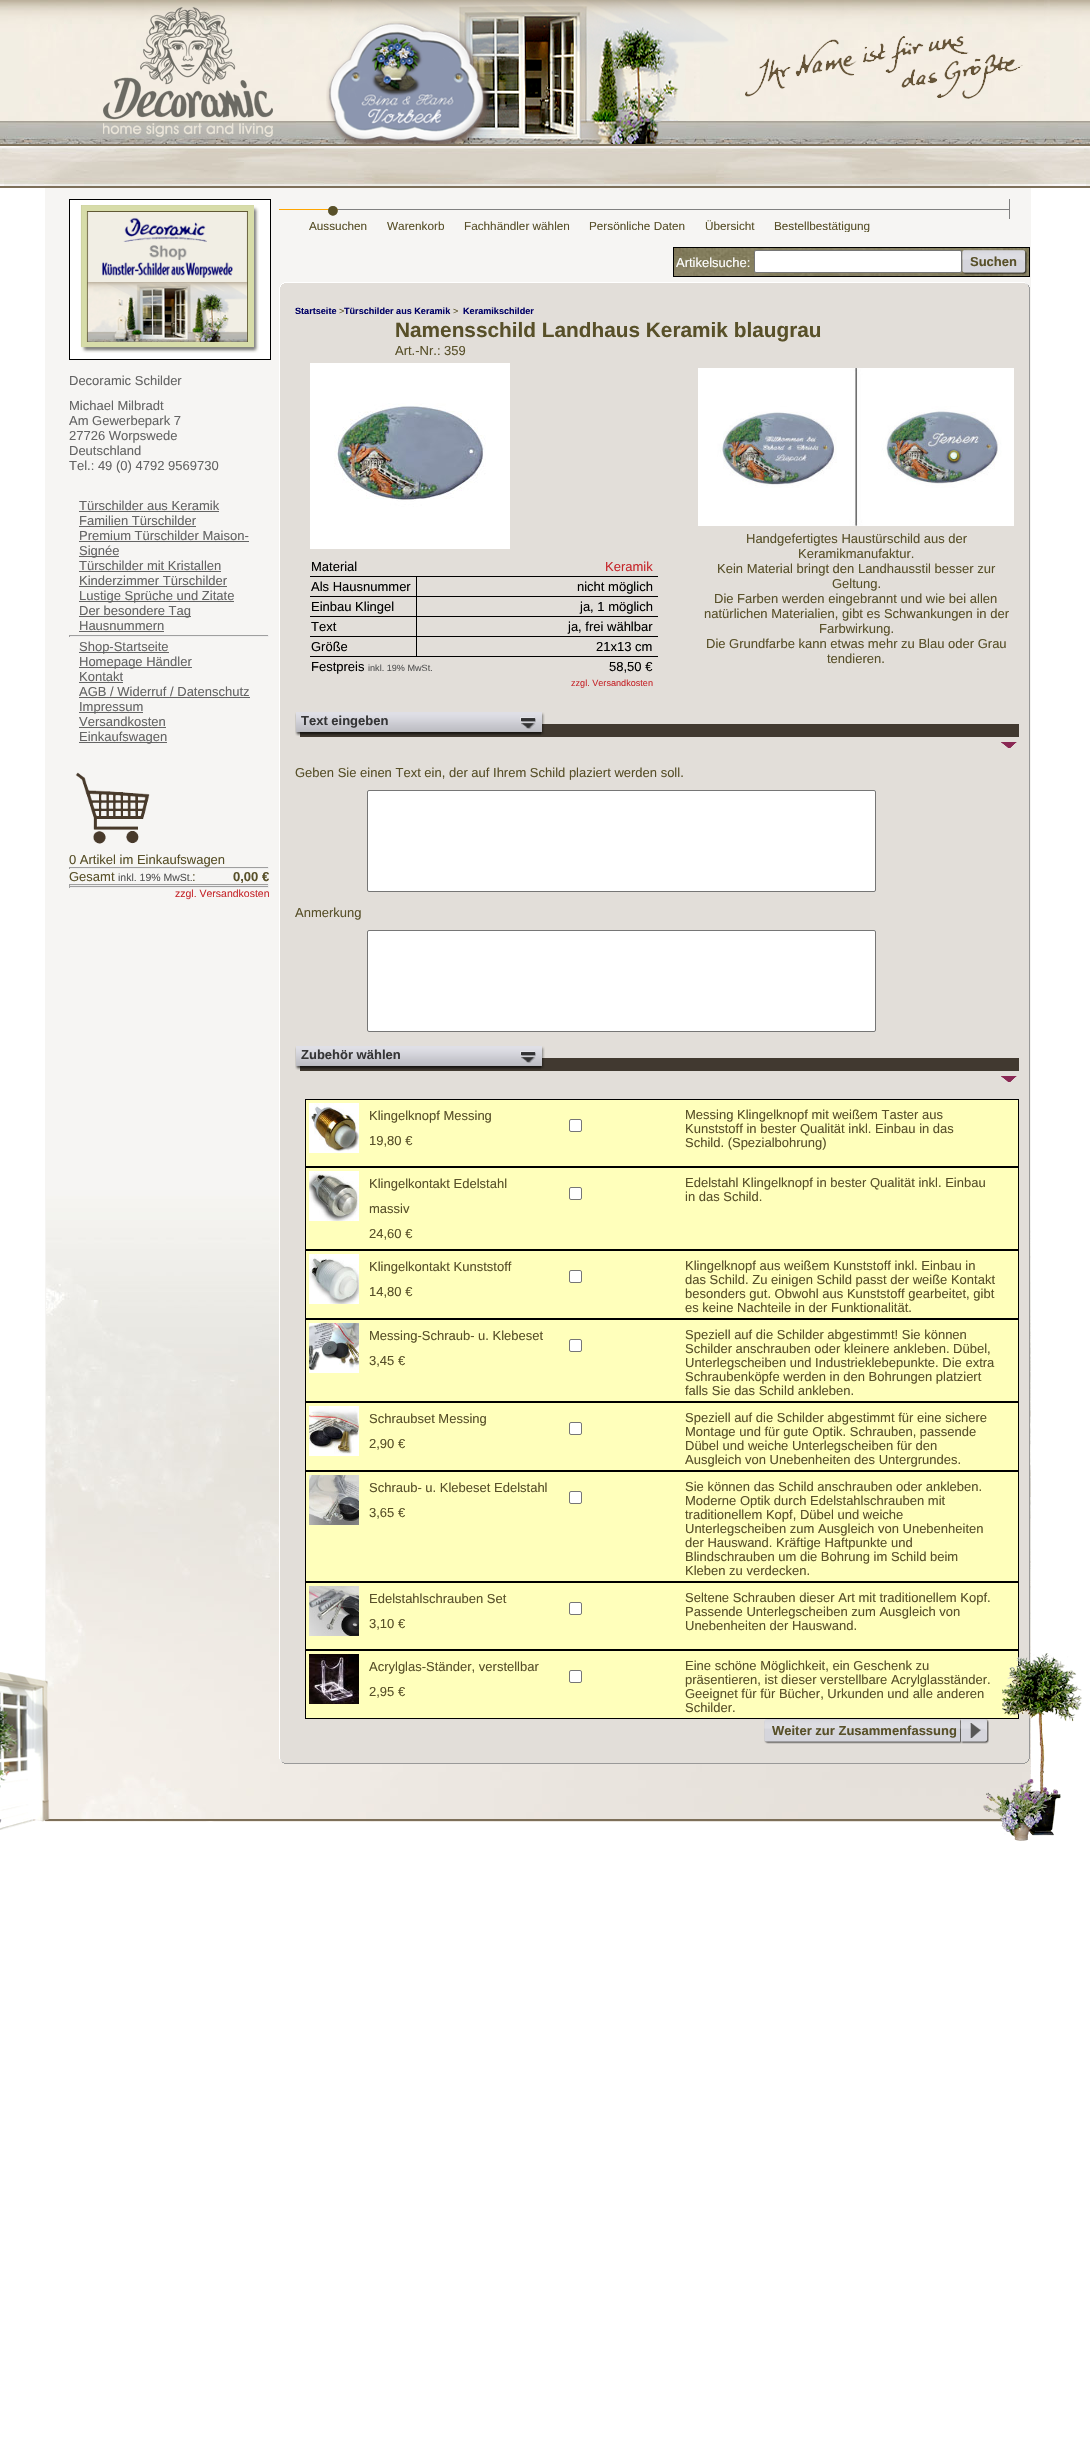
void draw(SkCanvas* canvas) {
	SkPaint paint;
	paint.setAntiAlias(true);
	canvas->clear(0xffffffff);
	canvas->drawImageRect(SkImages::DeferredFromEncodedData(SkData::MakeFromFileName("img1.png")), SkRect::MakeXYWH(0, 0, 1090, 144), SkSamplingOptions());
	canvas->drawImageRect(SkImages::DeferredFromEncodedData(SkData::MakeFromFileName("img2.png")), SkRect::MakeXYWH(103, 7, 170, 130), SkSamplingOptions());
	canvas->drawImageRect(SkImages::DeferredFromEncodedData(SkData::MakeFromFileName("img3.png")), SkRect::MakeXYWH(331, 0, 404, 144), SkSamplingOptions());
	canvas->drawImageRect(SkImages::DeferredFromEncodedData(SkData::MakeFromFileName("img4.png")), SkRect::MakeXYWH(326, 21, 166, 123), SkSamplingOptions());
	canvas->drawImageRect(SkImages::DeferredFromEncodedData(SkData::MakeFromFileName("img5.png")), SkRect::MakeXYWH(745, 36, 278, 63), SkSamplingOptions());
	canvas->drawImageRect(SkImages::DeferredFromEncodedData(SkData::MakeFromFileName("img6.png")), SkRect::MakeXYWH(0, 146, 1090, 40), SkSamplingOptions());
	paint.setColor(0xff7f725c);
	canvas->drawRect(SkRect::MakeXYWH(0, 144, 1090, 2), paint);
	paint.setColor(0xff7d6f59);
	canvas->drawRect(SkRect::MakeXYWH(0, 186, 1090, 2), paint);
	paint.setColor(0xfff6f5f3);
	canvas->drawRect(SkRect::MakeXYWH(45, 188, 986, 1634), paint);
	canvas->drawImageRect(SkImages::DeferredFromEncodedData(SkData::MakeFromFileName("img7.png")), SkRect::MakeXYWH(46, 1196, 985, 626), SkSamplingOptions());
	paint.setColor(0xff808080);
	canvas->drawRect(SkRect::MakeXYWH(1009, 199, 1, 20), paint);
	paint.setColor(0xffffa500);
	canvas->drawRect(SkRect::MakeXYWH(279, 209, 59, 1), paint);
	SkFont f1(fontMgr->matchFamilyStyle("Liberation Sans", SkFontStyle::Bold()), 34);
	f1.setSubpixel(true);
	paint.setColor(0xff585029);
	canvas->drawString("•", 327, 222, f1, paint);
	paint.setColor(0xff808080);
	canvas->drawRect(SkRect::MakeXYWH(338, 209, 671, 1), paint);
	SkFont f2(fontMgr->matchFamilyStyle("Liberation Sans", SkFontStyle::Normal()), 11.75);
	f2.setSubpixel(true);
	paint.setColor(0xff585029);
	canvas->drawString("Aussuchen", 309, 230, f2, paint);
	canvas->drawString("Warenkorb", 387, 230, f2, paint);
	canvas->drawString("Fachhändler wählen", 464, 230, f2, paint);
	canvas->drawString("Persönliche Daten", 589, 230, f2, paint);
	canvas->drawString("Übersicht", 705, 230, f2, paint);
	canvas->save();
	canvas->clipRect(SkRect::MakeXYWH(279, 219, 731, 13));
	canvas->drawString("Bestellbestätigung", 774, 230, f2, paint);
	canvas->restore();
	canvas->drawImageRect(SkImages::DeferredFromEncodedData(SkData::MakeFromFileName("img8.png")), SkRect::MakeXYWH(674, 248, 355, 28), SkSamplingOptions());
	paint.setStroke(true);
	paint.setStrokeWidth(1);
	paint.setColor(0xff000000);
	canvas->drawRect(SkRect::MakeXYWH(673.5, 247.5, 356, 29), paint);
	SkFont f3(fontMgr->matchFamilyStyle("Liberation Sans", SkFontStyle::Normal()), 13);
	f3.setSubpixel(true);
	paint.setStroke(false);
	paint.setColor(0xffffffff);
	canvas->drawString("Artikelsuche:", 676, 267, f3, paint);
	canvas->drawRoundRect(SkRect::MakeXYWH(754.5, 250.5, 207, 22), 1.5, 1.5, paint);
	paint.setStroke(true);
	paint.setColor(0xff767676);
	canvas->drawRoundRect(SkRect::MakeXYWH(754.5, 250.5, 207, 22), 1.5, 1.5, paint);
	canvas->drawImageRect(SkImages::DeferredFromEncodedData(SkData::MakeFromFileName("img9.png")), SkRect::MakeXYWH(962, 250, 5, 25), SkSamplingOptions());
	canvas->drawImageRect(SkImages::DeferredFromEncodedData(SkData::MakeFromFileName("img10.png")), SkRect::MakeXYWH(1020, 250, 7, 25), SkSamplingOptions());
	canvas->drawImageRect(SkImages::DeferredFromEncodedData(SkData::MakeFromFileName("img11.png")), SkRect::MakeXYWH(967, 250, 53, 25), SkSamplingOptions());
	SkFont f4(fontMgr->matchFamilyStyle("Liberation Sans", SkFontStyle::Bold()), 13);
	f4.setSubpixel(true);
	paint.setStroke(false);
	paint.setColor(0xff585029);
	canvas->drawString("Suchen", 970, 266, f4, paint);
	paint.setColor(0xffffffff);
	canvas->drawRect(SkRect::MakeXYWH(69.5, 199.5, 201, 160), paint);
	paint.setStroke(true);
	paint.setColor(0xff000000);
	canvas->drawRect(SkRect::MakeXYWH(69.5, 199.5, 201, 160), paint);
	canvas->drawImageRect(SkImages::DeferredFromEncodedData(SkData::MakeFromFileName("img12.png")), SkRect::MakeXYWH(80, 205, 179, 148), SkSamplingOptions());
	paint.setStroke(false);
	paint.setColor(0xff646464);
	canvas->drawString("Decoramic Schilder", 69, 385, f3, paint);
	canvas->drawString("Michael Milbradt", 69, 410, f3, paint);
	canvas->drawString("Am Gewerbepark 7", 69, 425, f3, paint);
	canvas->drawString("27726 Worpswede", 69, 440, f3, paint);
	canvas->drawString("Deutschland", 69, 455, f3, paint);
	canvas->drawString("Tel.: 49 (0) 4792 9569730", 69, 470, f3, paint);
	canvas->drawString("Türschilder aus Keramik", 79, 510, f3, paint);
	canvas->drawRect(SkRect::MakeXYWH(79, 511, 140, 1), paint);
	canvas->drawString("Familien Türschilder", 79, 525, f3, paint);
	canvas->drawRect(SkRect::MakeXYWH(79, 526, 117, 1), paint);
	canvas->drawString("Premium Türschilder Maison-", 79, 540, f3, paint);
	canvas->drawRect(SkRect::MakeXYWH(79, 541, 170, 1), paint);
	canvas->drawRect(SkRect::MakeXYWH(79, 556, 40, 1), paint);
	canvas->drawString("Signée", 79, 555, f3, paint);
	canvas->drawString("Türschilder mit Kristallen", 79, 570, f3, paint);
	canvas->drawRect(SkRect::MakeXYWH(79, 571, 142, 1), paint);
	canvas->drawString("Kinderzimmer Türschilder", 79, 585, f3, paint);
	canvas->drawRect(SkRect::MakeXYWH(79, 586, 148, 1), paint);
	canvas->drawRect(SkRect::MakeXYWH(79, 601, 155, 1), paint);
	canvas->drawString("Lustige Sprüche und Zitate", 79, 600, f3, paint);
	canvas->drawRect(SkRect::MakeXYWH(79, 616, 112, 1), paint);
	canvas->drawString("Der besondere Tag", 79, 615, f3, paint);
	canvas->drawString("Hausnummern", 79, 630, f3, paint);
	canvas->drawRect(SkRect::MakeXYWH(79, 631, 85, 1), paint);
	paint.setColor(0xff9f9f9f);
	canvas->drawRect(SkRect::MakeXYWH(69, 635, 200, 1), paint);
	paint.setColor(0xffeeeeee);
	canvas->drawRect(SkRect::MakeXYWH(268, 635, 1, 2), paint);
	canvas->drawRect(SkRect::MakeXYWH(69, 636, 200, 1), paint);
	paint.setColor(0xff9f9f9f);
	canvas->drawRect(SkRect::MakeXYWH(69, 635, 1, 2), paint);
	paint.setColor(0xff646464);
	canvas->drawRect(SkRect::MakeXYWH(79, 652, 90, 1), paint);
	canvas->drawString("Shop-Startseite", 79, 651, f3, paint);
	canvas->drawRect(SkRect::MakeXYWH(79, 667, 113, 1), paint);
	canvas->drawString("Homepage Händler", 79, 666, f3, paint);
	canvas->drawString("Kontakt", 79, 681, f3, paint);
	canvas->drawRect(SkRect::MakeXYWH(79, 682, 44, 1), paint);
	canvas->drawString("AGB / Widerruf / Datenschutz", 79, 696, f3, paint);
	canvas->drawRect(SkRect::MakeXYWH(79, 697, 171, 1), paint);
	canvas->drawRect(SkRect::MakeXYWH(79, 712, 64, 1), paint);
	canvas->drawString("Impressum", 79, 711, f3, paint);
	canvas->drawString("Versandkosten", 79, 726, f3, paint);
	canvas->drawRect(SkRect::MakeXYWH(79, 727, 87, 1), paint);
	canvas->drawRect(SkRect::MakeXYWH(79, 742, 88, 1), paint);
	canvas->drawString("Einkaufswagen", 79, 741, f3, paint);
	canvas->drawImageRect(SkImages::DeferredFromEncodedData(SkData::MakeFromFileName("img13.png")), SkRect::MakeXYWH(75, 772, 75, 72), SkSamplingOptions());
	paint.setColor(0xff585029);
	canvas->drawString("0 Artikel im Einkaufswagen", 69, 864, f3, paint);
	paint.setColor(0xff9f9f9f);
	canvas->drawRect(SkRect::MakeXYWH(69, 867, 200, 1), paint);
	paint.setColor(0xffeeeeee);
	canvas->drawRect(SkRect::MakeXYWH(268, 867, 1, 2), paint);
	canvas->drawRect(SkRect::MakeXYWH(69, 868, 200, 1), paint);
	paint.setColor(0xff9f9f9f);
	canvas->drawRect(SkRect::MakeXYWH(69, 867, 1, 2), paint);
	paint.setColor(0xff585029);
	canvas->drawString("Gesamt", 69, 881, f3, paint);
	SkFont f5(fontMgr->matchFamilyStyle("Liberation Sans", SkFontStyle::Normal()), 10.5);
	f5.setSubpixel(true);
	paint.setColor(0xff555555);
	canvas->drawString("inkl. 19% MwSt.", 118, 881, f5, paint);
	paint.setColor(0xff585029);
	canvas->drawString(":", 192, 881, f3, paint);
	canvas->drawString("0,00 €", 233, 881, f4, paint);
	paint.setColor(0xff9f9f9f);
	canvas->drawRect(SkRect::MakeXYWH(69, 884, 200, 1), paint);
	paint.setColor(0xffeeeeee);
	canvas->drawRect(SkRect::MakeXYWH(268, 884, 1, 2), paint);
	canvas->drawRect(SkRect::MakeXYWH(69, 885, 200, 1), paint);
	paint.setColor(0xff9f9f9f);
	canvas->drawRect(SkRect::MakeXYWH(69, 884, 1, 2), paint);
	canvas->drawRect(SkRect::MakeXYWH(69, 886, 200, 1), paint);
	paint.setColor(0xffeeeeee);
	canvas->drawRect(SkRect::MakeXYWH(268, 886, 1, 2), paint);
	canvas->drawRect(SkRect::MakeXYWH(69, 887, 200, 1), paint);
	paint.setColor(0xff9f9f9f);
	canvas->drawRect(SkRect::MakeXYWH(69, 886, 1, 2), paint);
	paint.setColor(0xffc6282d);
	canvas->drawString("zzgl. Versandkosten", 175, 897, f5, paint);
	paint.setColor(0xffffffff);
	canvas->drawRect(SkRect::MakeXYWH(284, 282, 741, 1), paint);
	paint.setColor(0xffe2ded9);
	canvas->drawRect(SkRect::MakeXYWH(282, 283, 745, 1), paint);
	paint.setColor(0xffeeeeee);
	canvas->drawRect(SkRect::MakeXYWH(1025, 283, 2, 1), paint);
	paint.setColor(0xffffffff);
	canvas->drawRect(SkRect::MakeXYWH(282, 283, 2, 1), paint);
	paint.setColor(0xffe2ded9);
	canvas->drawRect(SkRect::MakeXYWH(281, 284, 747, 1), paint);
	paint.setColor(0xffdddddd);
	canvas->drawRect(SkRect::MakeXYWH(1027, 284, 1, 1), paint);
	paint.setColor(0xffffffff);
	canvas->drawRect(SkRect::MakeXYWH(281, 284, 1, 1), paint);
	paint.setColor(0xffe2ded9);
	canvas->drawRect(SkRect::MakeXYWH(280, 285, 749, 1476), paint);
	paint.setColor(0xffaaaaaa);
	canvas->drawRect(SkRect::MakeXYWH(1028, 285, 1, 2), paint);
	paint.setColor(0xffffffff);
	canvas->drawRect(SkRect::MakeXYWH(280, 285, 1, 2), paint);
	paint.setColor(0xff999999);
	canvas->drawRect(SkRect::MakeXYWH(1029, 287, 1, 1472), paint);
	paint.setColor(0xffffffff);
	canvas->drawRect(SkRect::MakeXYWH(279, 287, 1, 1472), paint);
	SkFont f6(fontMgr->matchFamilyStyle("Liberation Sans", SkFontStyle::Bold()), 9.1);
	f6.setSubpixel(true);
	paint.setColor(0xff000065);
	canvas->drawString("Startseite", 295, 314, f6, paint);
	SkFont f7(fontMgr->matchFamilyStyle("Liberation Sans", SkFontStyle::Normal()), 9.1);
	f7.setSubpixel(true);
	paint.setColor(0xff585029);
	canvas->drawString(">", 339, 314, f7, paint);
	paint.setColor(0xff000065);
	canvas->drawString("Türschilder aus Keramik", 344, 314, f6, paint);
	paint.setColor(0xff585029);
	canvas->drawString(">", 453, 314, f7, paint);
	paint.setColor(0xff000065);
	canvas->drawString("Keramikschilder", 463, 314, f6, paint);
	SkFont f8(fontMgr->matchFamilyStyle("Liberation Sans", SkFontStyle::Bold()), 20.8);
	f8.setSubpixel(true);
	paint.setColor(0xff585029);
	canvas->drawString("Namensschild Landhaus Keramik blaugrau", 395, 337, f8, paint);
	canvas->drawString("Art.-Nr.: 359", 395, 355, f3, paint);
	canvas->drawImageRect(SkImages::DeferredFromEncodedData(SkData::MakeFromFileName("img14.png")), SkRect::MakeXYWH(310, 363, 200, 186), SkSamplingOptions());
	paint.setColor(0xff000000);
	canvas->drawString("Material", 311, 571, f3, paint);
	paint.setColor(0xffc6282d);
	canvas->drawString("Keramik", 605, 571, f3, paint);
	paint.setColor(0xff000000);
	canvas->drawRect(SkRect::MakeXYWH(310, 576, 348, 1), paint);
	canvas->drawRect(SkRect::MakeXYWH(310, 596, 348, 1), paint);
	canvas->drawRect(SkRect::MakeXYWH(310, 616, 348, 1), paint);
	canvas->drawRect(SkRect::MakeXYWH(310, 636, 348, 1), paint);
	canvas->drawRect(SkRect::MakeXYWH(310, 656, 348, 1), paint);
	canvas->drawRect(SkRect::MakeXYWH(416, 636, 1, 21), paint);
	canvas->drawRect(SkRect::MakeXYWH(416, 616, 1, 21), paint);
	canvas->drawRect(SkRect::MakeXYWH(416, 596, 1, 21), paint);
	canvas->drawRect(SkRect::MakeXYWH(416, 576, 1, 21), paint);
	canvas->drawString("Als Hausnummer", 311, 591, f3, paint);
	canvas->drawString("nicht möglich", 577, 591, f3, paint);
	canvas->drawString("Einbau Klingel", 311, 611, f3, paint);
	canvas->drawString("ja, 1 möglich", 580, 611, f3, paint);
	canvas->drawString("Text", 311, 631, f3, paint);
	canvas->drawString("ja, frei wählbar", 568, 631, f3, paint);
	canvas->drawString("Größe", 311, 651, f3, paint);
	canvas->drawString("21x13 cm", 596, 651, f3, paint);
	canvas->drawString("Festpreis", 311, 671, f3, paint);
	paint.setColor(0xff555555);
	canvas->drawString("inkl. 19% MwSt.", 368, 671, f7, paint);
	paint.setColor(0xff000000);
	canvas->drawString("58,50 €", 609, 671, f3, paint);
	paint.setColor(0xffc6282d);
	canvas->drawString("zzgl. Versandkosten", 571, 686, f7, paint);
	canvas->drawImageRect(SkImages::DeferredFromEncodedData(SkData::MakeFromFileName("img15.png")), SkRect::MakeXYWH(698, 368, 316, 158), SkSamplingOptions());
	paint.setColor(0xff585029);
	canvas->drawString("Handgefertigtes Haustürschild aus der", 746, 543, f3, paint);
	canvas->drawString("Keramikmanufaktur.", 798, 558, f3, paint);
	canvas->drawString("Kein Material bringt den Landhausstil besser zur", 717, 573, f3, paint);
	canvas->drawString("Geltung.", 832, 588, f3, paint);
	canvas->drawString("Die Farben werden eingebrannt und wie bei allen", 714, 603, f3, paint);
	canvas->drawString("natürlichen Materialien, gibt es Schwankungen in der", 704, 618, f3, paint);
	canvas->drawString("Farbwirkung.", 819, 633, f3, paint);
	canvas->drawString("Die Grundfarbe kann etwas mehr zu Blau oder Grau", 706, 648, f3, paint);
	canvas->drawString("tendieren.", 827, 663, f3, paint);
	paint.setColor(0xff413930);
	canvas->drawRect(SkRect::MakeXYWH(300, 724, 719, 13), paint);
	canvas->drawImageRect(SkImages::DeferredFromEncodedData(SkData::MakeFromFileName("img16.png")), SkRect::MakeXYWH(295, 712, 6, 24), SkSamplingOptions());
	canvas->drawImageRect(SkImages::DeferredFromEncodedData(SkData::MakeFromFileName("img17.png")), SkRect::MakeXYWH(541, 712, 4, 23), SkSamplingOptions());
	canvas->drawImageRect(SkImages::DeferredFromEncodedData(SkData::MakeFromFileName("img18.png")), SkRect::MakeXYWH(301, 712, 240, 24), SkSamplingOptions());
	canvas->drawImageRect(SkImages::DeferredFromEncodedData(SkData::MakeFromFileName("img19.png")), SkRect::MakeXYWH(520, 717, 16, 12), SkSamplingOptions());
	paint.setColor(0xff353536);
	canvas->drawString("Text eingeben", 301, 725, f4, paint);
	canvas->drawImageRect(SkImages::DeferredFromEncodedData(SkData::MakeFromFileName("img20.png")), SkRect::MakeXYWH(1001, 742, 16, 6), SkSamplingOptions());
	paint.setColor(0xff585029);
	canvas->drawString("Geben Sie einen Text ein, der auf Ihrem Schild plaziert werden soll.", 295, 777, f3, paint);
	paint.setColor(0xffffffff);
	canvas->drawRoundRect(SkRect::MakeXYWH(367.5, 790.5, 508, 101), 1.5, 1.5, paint);
	paint.setStroke(true);
	paint.setColor(0xff767676);
	canvas->drawRoundRect(SkRect::MakeXYWH(367.5, 790.5, 508, 101), 1.5, 1.5, paint);
	paint.setStroke(false);
	paint.setColor(0xff585029);
	canvas->drawString("Anmerkung", 295, 917, f3, paint);
	paint.setColor(0xffffffff);
	canvas->drawRoundRect(SkRect::MakeXYWH(367.5, 930.5, 508, 101), 1.5, 1.5, paint);
	paint.setStroke(true);
	paint.setColor(0xff767676);
	canvas->drawRoundRect(SkRect::MakeXYWH(367.5, 930.5, 508, 101), 1.5, 1.5, paint);
	paint.setStroke(false);
	paint.setColor(0xff413930);
	canvas->drawRect(SkRect::MakeXYWH(300, 1058, 719, 13), paint);
	canvas->drawImageRect(SkImages::DeferredFromEncodedData(SkData::MakeFromFileName("img16.png")), SkRect::MakeXYWH(295, 1046, 6, 24), SkSamplingOptions());
	canvas->drawImageRect(SkImages::DeferredFromEncodedData(SkData::MakeFromFileName("img17.png")), SkRect::MakeXYWH(541, 1046, 4, 23), SkSamplingOptions());
	canvas->drawImageRect(SkImages::DeferredFromEncodedData(SkData::MakeFromFileName("img18.png")), SkRect::MakeXYWH(301, 1046, 240, 24), SkSamplingOptions());
	canvas->drawImageRect(SkImages::DeferredFromEncodedData(SkData::MakeFromFileName("img19.png")), SkRect::MakeXYWH(520, 1051, 16, 12), SkSamplingOptions());
	paint.setColor(0xff353536);
	canvas->drawString("Zubehör wählen", 301, 1059, f4, paint);
	canvas->drawImageRect(SkImages::DeferredFromEncodedData(SkData::MakeFromFileName("img20.png")), SkRect::MakeXYWH(1001, 1076, 16, 6), SkSamplingOptions());
	paint.setColor(0xffffffbb);
	canvas->drawRect(SkRect::MakeXYWH(305.5, 1099.5, 713, 67), paint);
	paint.setStroke(true);
	paint.setColor(0xff000000);
	canvas->drawRect(SkRect::MakeXYWH(305.5, 1099.5, 713, 67), paint);
	canvas->drawImageRect(SkImages::DeferredFromEncodedData(SkData::MakeFromFileName("img21.png")), SkRect::MakeXYWH(309, 1103, 50, 50), SkSamplingOptions());
	paint.setStroke(false);
	paint.setColor(0xff585029);
	canvas->drawString("Klingelknopf Messing", 369, 1120, f3, paint);
	canvas->drawString("19,80 €", 369, 1145, f3, paint);
	paint.setColor(0xffffffff);
	canvas->drawRoundRect(SkRect::MakeXYWH(569.5, 1119.5, 12, 12), 1.5, 1.5, paint);
	paint.setStroke(true);
	paint.setColor(0xff767676);
	canvas->drawRoundRect(SkRect::MakeXYWH(569.5, 1119.5, 12, 12), 1.5, 1.5, paint);
	paint.setStroke(false);
	paint.setColor(0xff585029);
	canvas->drawString("Messing Klingelknopf mit weißem Taster aus", 685, 1119, f3, paint);
	canvas->drawString("Kunststoff in bester Qualität inkl. Einbau in das", 685, 1133, f3, paint);
	canvas->drawString("Schild. (Spezialbohrung)", 685, 1147, f3, paint);
	paint.setColor(0xffffffbb);
	canvas->drawRect(SkRect::MakeXYWH(305.5, 1167.5, 713, 82), paint);
	paint.setStroke(true);
	paint.setColor(0xff000000);
	canvas->drawRect(SkRect::MakeXYWH(305.5, 1167.5, 713, 82), paint);
	canvas->drawImageRect(SkImages::DeferredFromEncodedData(SkData::MakeFromFileName("img22.png")), SkRect::MakeXYWH(309, 1171, 50, 50), SkSamplingOptions());
	paint.setStroke(false);
	paint.setColor(0xff585029);
	canvas->drawString("Klingelkontakt Edelstahl", 369, 1188, f3, paint);
	canvas->drawString("massiv", 369, 1213, f3, paint);
	canvas->drawString("24,60 €", 369, 1238, f3, paint);
	paint.setColor(0xffffffff);
	canvas->drawRoundRect(SkRect::MakeXYWH(569.5, 1187.5, 12, 12), 1.5, 1.5, paint);
	paint.setStroke(true);
	paint.setColor(0xff767676);
	canvas->drawRoundRect(SkRect::MakeXYWH(569.5, 1187.5, 12, 12), 1.5, 1.5, paint);
	paint.setStroke(false);
	paint.setColor(0xff585029);
	canvas->drawString("Edelstahl Klingelknopf in bester Qualität inkl. Einbau", 685, 1187, f3, paint);
	canvas->drawString("in das Schild.", 685, 1201, f3, paint);
	paint.setColor(0xffffffbb);
	canvas->drawRect(SkRect::MakeXYWH(305.5, 1250.5, 713, 68), paint);
	paint.setStroke(true);
	paint.setColor(0xff000000);
	canvas->drawRect(SkRect::MakeXYWH(305.5, 1250.5, 713, 68), paint);
	canvas->drawImageRect(SkImages::DeferredFromEncodedData(SkData::MakeFromFileName("img23.png")), SkRect::MakeXYWH(309, 1254, 50, 50), SkSamplingOptions());
	paint.setStroke(false);
	paint.setColor(0xff585029);
	canvas->drawString("Klingelkontakt Kunststoff", 369, 1271, f3, paint);
	canvas->drawString("14,80 €", 369, 1296, f3, paint);
	paint.setColor(0xffffffff);
	canvas->drawRoundRect(SkRect::MakeXYWH(569.5, 1270.5, 12, 12), 1.5, 1.5, paint);
	paint.setStroke(true);
	paint.setColor(0xff767676);
	canvas->drawRoundRect(SkRect::MakeXYWH(569.5, 1270.5, 12, 12), 1.5, 1.5, paint);
	paint.setStroke(false);
	paint.setColor(0xff585029);
	canvas->drawString("Klingelknopf aus weißem Kunststoff inkl. Einbau in", 685, 1270, f3, paint);
	canvas->drawString("das Schild. Zu einigen Schild passt der weiße Kontakt", 685, 1284, f3, paint);
	canvas->drawString("besonders gut. Obwohl aus Kunststoff gearbeitet, gibt", 685, 1298, f3, paint);
	canvas->drawString("es keine Nachteile in der Funktionalität.", 685, 1312, f3, paint);
	paint.setColor(0xffffffbb);
	canvas->drawRect(SkRect::MakeXYWH(305.5, 1319.5, 713, 82), paint);
	paint.setStroke(true);
	paint.setColor(0xff000000);
	canvas->drawRect(SkRect::MakeXYWH(305.5, 1319.5, 713, 82), paint);
	canvas->drawImageRect(SkImages::DeferredFromEncodedData(SkData::MakeFromFileName("img24.png")), SkRect::MakeXYWH(309, 1323, 50, 50), SkSamplingOptions());
	paint.setStroke(false);
	paint.setColor(0xff585029);
	canvas->drawString("Messing-Schraub- u. Klebeset", 369, 1340, f3, paint);
	canvas->drawString("3,45 €", 369, 1365, f3, paint);
	paint.setColor(0xffffffff);
	canvas->drawRoundRect(SkRect::MakeXYWH(569.5, 1339.5, 12, 12), 1.5, 1.5, paint);
	paint.setStroke(true);
	paint.setColor(0xff767676);
	canvas->drawRoundRect(SkRect::MakeXYWH(569.5, 1339.5, 12, 12), 1.5, 1.5, paint);
	paint.setStroke(false);
	paint.setColor(0xff585029);
	canvas->drawString("Speziell auf die Schilder abgestimmt! Sie können", 685, 1339, f3, paint);
	canvas->drawString("Schilder anschrauben oder kleinere ankleben. Dübel,", 685, 1353, f3, paint);
	canvas->drawString("Unterlegscheiben und Industrieklebepunkte. Die extra", 685, 1367, f3, paint);
	canvas->drawString("Schraubenköpfe werden in den Bohrungen platziert", 685, 1381, f3, paint);
	canvas->drawString("falls Sie das Schild ankleben.", 685, 1395, f3, paint);
	paint.setColor(0xffffffbb);
	canvas->drawRect(SkRect::MakeXYWH(305.5, 1402.5, 713, 68), paint);
	paint.setStroke(true);
	paint.setColor(0xff000000);
	canvas->drawRect(SkRect::MakeXYWH(305.5, 1402.5, 713, 68), paint);
	canvas->drawImageRect(SkImages::DeferredFromEncodedData(SkData::MakeFromFileName("img25.png")), SkRect::MakeXYWH(309, 1406, 50, 50), SkSamplingOptions());
	paint.setStroke(false);
	paint.setColor(0xff585029);
	canvas->drawString("Schraubset Messing", 369, 1423, f3, paint);
	canvas->drawString("2,90 €", 369, 1448, f3, paint);
	paint.setColor(0xffffffff);
	canvas->drawRoundRect(SkRect::MakeXYWH(569.5, 1422.5, 12, 12), 1.5, 1.5, paint);
	paint.setStroke(true);
	paint.setColor(0xff767676);
	canvas->drawRoundRect(SkRect::MakeXYWH(569.5, 1422.5, 12, 12), 1.5, 1.5, paint);
	paint.setStroke(false);
	paint.setColor(0xff585029);
	canvas->drawString("Speziell auf die Schilder abgestimmt für eine sichere", 685, 1422, f3, paint);
	canvas->drawString("Montage und für gute Optik. Schrauben, passende", 685, 1436, f3, paint);
	canvas->drawString("Dübel und weiche Unterlegscheiben für den", 685, 1450, f3, paint);
	canvas->drawString("Ausgleich von Unebenheiten des Untergrundes.", 685, 1464, f3, paint);
	paint.setColor(0xffffffbb);
	canvas->drawRect(SkRect::MakeXYWH(305.5, 1471.5, 713, 110), paint);
	paint.setStroke(true);
	paint.setColor(0xff000000);
	canvas->drawRect(SkRect::MakeXYWH(305.5, 1471.5, 713, 110), paint);
	canvas->drawImageRect(SkImages::DeferredFromEncodedData(SkData::MakeFromFileName("img26.png")), SkRect::MakeXYWH(309, 1475, 50, 50), SkSamplingOptions());
	paint.setStroke(false);
	paint.setColor(0xff585029);
	canvas->drawString("Schraub- u. Klebeset Edelstahl", 369, 1492, f3, paint);
	canvas->drawString("3,65 €", 369, 1517, f3, paint);
	paint.setColor(0xffffffff);
	canvas->drawRoundRect(SkRect::MakeXYWH(569.5, 1491.5, 12, 12), 1.5, 1.5, paint);
	paint.setStroke(true);
	paint.setColor(0xff767676);
	canvas->drawRoundRect(SkRect::MakeXYWH(569.5, 1491.5, 12, 12), 1.5, 1.5, paint);
	paint.setStroke(false);
	paint.setColor(0xff585029);
	canvas->drawString("Sie können das Schild anschrauben oder ankleben.", 685, 1491, f3, paint);
	canvas->drawString("Moderne Optik durch Edelstahlschrauben mit", 685, 1505, f3, paint);
	canvas->drawString("traditionellem Kopf, Dübel und weiche", 685, 1519, f3, paint);
	canvas->drawString("Unterlegscheiben zum Ausgleich von Unebenheiten", 685, 1533, f3, paint);
	canvas->drawString("der Hauswand. Kräftige Haftpunkte und", 685, 1547, f3, paint);
	canvas->drawString("Blindschrauben um die Bohrung im Schild beim", 685, 1561, f3, paint);
	canvas->drawString("Kleben zu verdecken.", 685, 1575, f3, paint);
	paint.setColor(0xffffffbb);
	canvas->drawRect(SkRect::MakeXYWH(305.5, 1582.5, 713, 67), paint);
	paint.setStroke(true);
	paint.setColor(0xff000000);
	canvas->drawRect(SkRect::MakeXYWH(305.5, 1582.5, 713, 67), paint);
	canvas->drawImageRect(SkImages::DeferredFromEncodedData(SkData::MakeFromFileName("img27.png")), SkRect::MakeXYWH(309, 1586, 50, 50), SkSamplingOptions());
	paint.setStroke(false);
	paint.setColor(0xff585029);
	canvas->drawString("Edelstahlschrauben Set", 369, 1603, f3, paint);
	canvas->drawString("3,10 €", 369, 1628, f3, paint);
	paint.setColor(0xffffffff);
	canvas->drawRoundRect(SkRect::MakeXYWH(569.5, 1602.5, 12, 12), 1.5, 1.5, paint);
	paint.setStroke(true);
	paint.setColor(0xff767676);
	canvas->drawRoundRect(SkRect::MakeXYWH(569.5, 1602.5, 12, 12), 1.5, 1.5, paint);
	paint.setStroke(false);
	paint.setColor(0xff585029);
	canvas->drawString("Seltene Schrauben dieser Art mit traditionellem Kopf.", 685, 1602, f3, paint);
	canvas->drawString("Passende Unterlegscheiben zum Ausgleich von", 685, 1616, f3, paint);
	canvas->drawString("Unebenheiten der Hauswand.", 685, 1630, f3, paint);
	paint.setColor(0xffffffbb);
	canvas->drawRect(SkRect::MakeXYWH(305.5, 1650.5, 713, 68), paint);
	paint.setStroke(true);
	paint.setColor(0xff000000);
	canvas->drawRect(SkRect::MakeXYWH(305.5, 1650.5, 713, 68), paint);
	canvas->drawImageRect(SkImages::DeferredFromEncodedData(SkData::MakeFromFileName("img28.png")), SkRect::MakeXYWH(309, 1654, 50, 50), SkSamplingOptions());
	paint.setStroke(false);
	paint.setColor(0xff585029);
	canvas->drawString("Acrylglas-Ständer, verstellbar", 369, 1671, f3, paint);
	canvas->drawString("2,95 €", 369, 1696, f3, paint);
	paint.setColor(0xffffffff);
	canvas->drawRoundRect(SkRect::MakeXYWH(569.5, 1670.5, 12, 12), 1.5, 1.5, paint);
	paint.setStroke(true);
	paint.setColor(0xff767676);
	canvas->drawRoundRect(SkRect::MakeXYWH(569.5, 1670.5, 12, 12), 1.5, 1.5, paint);
	paint.setStroke(false);
	paint.setColor(0xff585029);
	canvas->drawString("Eine schöne Möglichkeit, ein Geschenk zu", 685, 1670, f3, paint);
	canvas->drawString("präsentieren, ist dieser verstellbare Acrylglasständer.", 685, 1684, f3, paint);
	canvas->drawString("Geeignet für für Bücher, Urkunden und alle anderen", 685, 1698, f3, paint);
	canvas->drawString("Schilder.", 685, 1712, f3, paint);
	canvas->drawImageRect(SkImages::DeferredFromEncodedData(SkData::MakeFromFileName("img29.png")), SkRect::MakeXYWH(764, 1719, 5, 25), SkSamplingOptions());
	canvas->drawImageRect(SkImages::DeferredFromEncodedData(SkData::MakeFromFileName("img30.png")), SkRect::MakeXYWH(960, 1719, 29, 25), SkSamplingOptions());
	canvas->drawImageRect(SkImages::DeferredFromEncodedData(SkData::MakeFromFileName("img31.png")), SkRect::MakeXYWH(769, 1719, 191, 25), SkSamplingOptions());
	canvas->drawImageRect(SkImages::DeferredFromEncodedData(SkData::MakeFromFileName("img32.png")), SkRect::MakeXYWH(970, 1723, 11, 15), SkSamplingOptions());
	canvas->drawString("Weiter zur Zusammenfassung", 772, 1735, f4, paint);
	paint.setColor(0xff999999);
	canvas->drawRect(SkRect::MakeXYWH(1028, 1759, 1, 2), paint);
	paint.setColor(0xffeeeeee);
	canvas->drawRect(SkRect::MakeXYWH(280, 1759, 1, 2), paint);
	paint.setColor(0xffe2ded9);
	canvas->drawRect(SkRect::MakeXYWH(281, 1761, 747, 1), paint);
	paint.setColor(0xff999999);
	canvas->drawRect(SkRect::MakeXYWH(1027, 1761, 1, 1), paint);
	paint.setColor(0xffdddddd);
	canvas->drawRect(SkRect::MakeXYWH(281, 1761, 1, 1), paint);
	paint.setColor(0xffe2ded9);
	canvas->drawRect(SkRect::MakeXYWH(282, 1762, 745, 1), paint);
	paint.setColor(0xff999999);
	canvas->drawRect(SkRect::MakeXYWH(1025, 1762, 2, 1), paint);
	paint.setColor(0xffaaaaaa);
	canvas->drawRect(SkRect::MakeXYWH(282, 1762, 2, 1), paint);
	paint.setColor(0xff999999);
	canvas->drawRect(SkRect::MakeXYWH(284, 1763, 741, 1), paint);
	paint.setColor(0xff7d6f59);
	canvas->drawRect(SkRect::MakeXYWH(45, 1819, 957, 2), paint);
	canvas->drawImageRect(SkImages::DeferredFromEncodedData(SkData::MakeFromFileName("img33.png")), SkRect::MakeXYWH(0, 1672, 50, 158), SkSamplingOptions());
	canvas->drawImageRect(SkImages::DeferredFromEncodedData(SkData::MakeFromFileName("img34.png")), SkRect::MakeXYWH(983, 1653, 99, 188), SkSamplingOptions());
}
